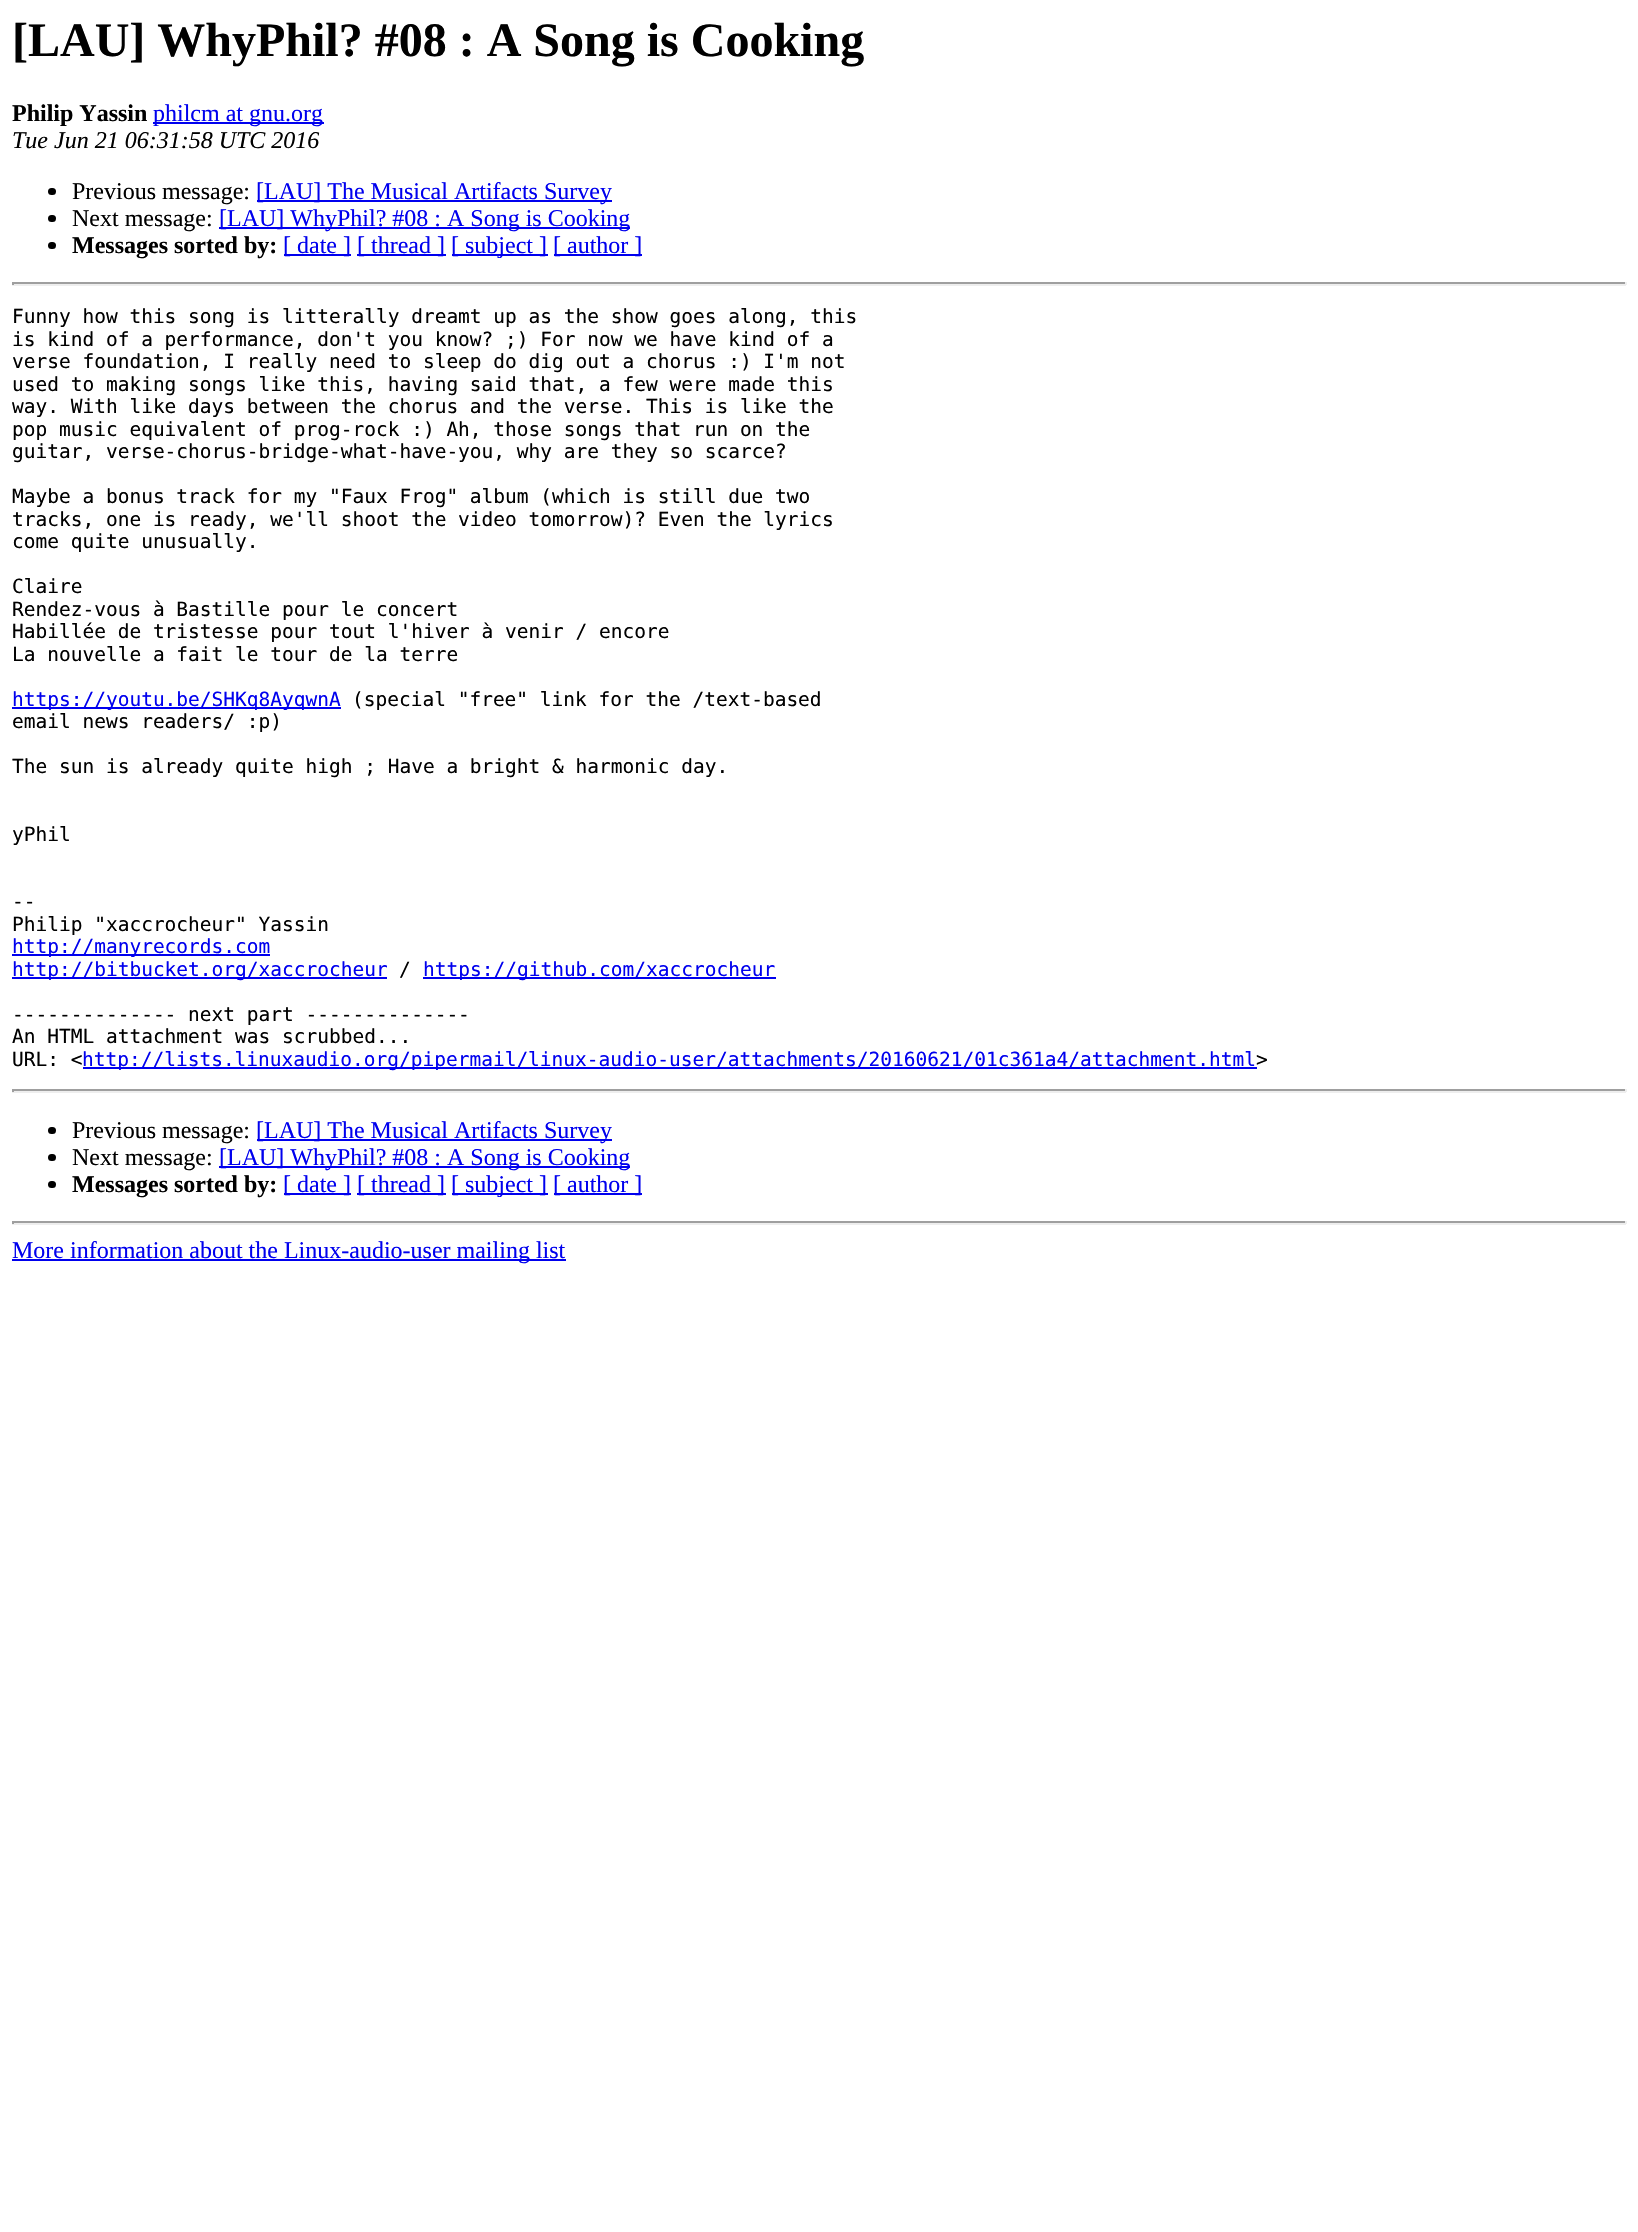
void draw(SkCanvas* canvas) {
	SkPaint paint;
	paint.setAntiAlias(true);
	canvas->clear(0xffffffff);
	SkFont f1(fontMgr->matchFamilyStyle("Liberation Serif", SkFontStyle::Bold()), 48);
	f1.setSubpixel(true);
	paint.setColor(0xff000000);
	canvas->drawString("[LAU] WhyPhil? #08 : A Song is Cooking", 12, 56, f1, paint);
	SkFont f2(fontMgr->matchFamilyStyle("Liberation Serif", SkFontStyle::Bold()), 24);
	f2.setSubpixel(true);
	canvas->drawString("Philip Yassin", 12, 121, f2, paint);
	paint.setColor(0xff0000ee);
	canvas->drawRect(SkRect::MakeXYWH(153, 122, 171, 2), paint);
	SkFont f3(fontMgr->matchFamilyStyle("Liberation Serif", SkFontStyle::Normal()), 24);
	f3.setSubpixel(true);
	canvas->drawString("philcm at gnu.org", 153, 121, f3, paint);
	SkFont f4(fontMgr->matchFamilyStyle("Liberation Serif", SkFontStyle::Italic()), 24);
	f4.setSubpixel(true);
	paint.setColor(0xff000000);
	canvas->drawString("Tue Jun 21 06:31:58 UTC 2016", 12, 148, f4, paint);
	canvas->drawRoundRect(SkRect::MakeXYWH(48, 188, 8, 7), 3.5, 3.5, paint);
	canvas->drawString("Previous message:", 72, 199, f3, paint);
	paint.setColor(0xff0000ee);
	canvas->drawRect(SkRect::MakeXYWH(257, 200, 355, 2), paint);
	canvas->drawString("[LAU] The Musical Artifacts Survey", 256, 199, f3, paint);
	paint.setColor(0xff000000);
	canvas->drawRoundRect(SkRect::MakeXYWH(48, 215, 8, 7), 3.5, 3.5, paint);
	canvas->drawString("Next message:", 72, 226, f3, paint);
	paint.setColor(0xff0000ee);
	canvas->drawRect(SkRect::MakeXYWH(219, 227, 411, 2), paint);
	canvas->drawString("[LAU] WhyPhil? #08 : A Song is Cooking", 219, 226, f3, paint);
	paint.setColor(0xff000000);
	canvas->drawRoundRect(SkRect::MakeXYWH(48, 242, 8, 7), 3.5, 3.5, paint);
	canvas->drawString("Messages sorted by:", 72, 253, f2, paint);
	paint.setColor(0xff0000ee);
	canvas->drawRect(SkRect::MakeXYWH(284, 254, 67, 2), paint);
	canvas->drawString("[ date ]", 283, 253, f3, paint);
	canvas->drawRect(SkRect::MakeXYWH(357, 254, 89, 2), paint);
	canvas->drawString("[ thread ]", 357, 253, f3, paint);
	canvas->drawRect(SkRect::MakeXYWH(452, 254, 96, 2), paint);
	canvas->drawString("[ subject ]", 451, 253, f3, paint);
	canvas->drawRect(SkRect::MakeXYWH(554, 254, 88, 2), paint);
	canvas->drawString("[ author ]", 553, 253, f3, paint);
	paint.setColor(0xff9f9f9f);
	canvas->drawRect(SkRect::MakeXYWH(12, 282, 1614, 2), paint);
	paint.setColor(0xffeeeeee);
	canvas->drawRect(SkRect::MakeXYWH(1625, 282, 2, 3), paint);
	canvas->drawRect(SkRect::MakeXYWH(12, 284, 1614, 2), paint);
	paint.setColor(0xff9f9f9f);
	canvas->drawRect(SkRect::MakeXYWH(12, 282, 2, 3), paint);
	SkFont f5(fontMgr->matchFamilyStyle("DejaVu Sans Mono", SkFontStyle::Normal()), 19.5);
	f5.setSubpixel(true);
	paint.setColor(0xff000000);
	canvas->drawString("Funny how this song is litterally dreamt up as the show goes along, this", 12, 323, f5, paint);
	canvas->drawString("is kind of a performance, don't you know? ;) For now we have kind of a", 12, 346, f5, paint);
	canvas->drawString("verse foundation, I really need to sleep do dig out a chorus :) I'm not", 12, 368, f5, paint);
	canvas->drawString("used to making songs like this, having said that, a few were made this", 12, 391, f5, paint);
	canvas->drawString("way. With like days between the chorus and the verse. This is like the", 12, 413, f5, paint);
	canvas->drawString("pop music equivalent of prog-rock :) Ah, those songs that run on the", 12, 436, f5, paint);
	canvas->drawString("guitar, verse-chorus-bridge-what-have-you, why are they so scarce?", 12, 458, f5, paint);
	canvas->drawString("Maybe a bonus track for my \"Faux Frog\" album (which is still due two", 12, 503, f5, paint);
	canvas->drawString("tracks, one is ready, we'll shoot the video tomorrow)? Even the lyrics", 12, 526, f5, paint);
	canvas->drawString("come quite unusually.", 12, 548, f5, paint);
	canvas->drawString("Claire", 12, 593, f5, paint);
	canvas->drawString("Rendez-vous à Bastille pour le concert", 12, 616, f5, paint);
	canvas->drawString("Habillée de tristesse pour tout l'hiver à venir / encore", 12, 638, f5, paint);
	canvas->drawString("La nouvelle a fait le tour de la terre", 12, 661, f5, paint);
	paint.setColor(0xff0000ee);
	canvas->drawRect(SkRect::MakeXYWH(12, 707, 329, 2), paint);
	canvas->drawString("https://youtu.be/SHKq8AyqwnA", 12, 706, f5, paint);
	paint.setColor(0xff000000);
	canvas->drawString("(special \"free\" link for the /text-based", 352, 706, f5, paint);
	canvas->drawString("email news readers/ :p)", 12, 728, f5, paint);
	canvas->drawString("The sun is already quite high ; Have a bright & harmonic day.", 12, 773, f5, paint);
	canvas->drawString("yPhil", 12, 841, f5, paint);
	canvas->drawString("--", 12, 908, f5, paint);
	canvas->drawString("Philip \"xaccrocheur\" Yassin", 12, 931, f5, paint);
	paint.setColor(0xff0000ee);
	canvas->drawRect(SkRect::MakeXYWH(12, 954, 258, 2), paint);
	canvas->drawString("http://manyrecords.com", 12, 953, f5, paint);
	canvas->drawRect(SkRect::MakeXYWH(12, 977, 375, 2), paint);
	canvas->drawString("http://bitbucket.org/xaccrocheur", 12, 976, f5, paint);
	paint.setColor(0xff000000);
	canvas->drawString("/", 399, 976, f5, paint);
	paint.setColor(0xff0000ee);
	canvas->drawRect(SkRect::MakeXYWH(423, 977, 353, 2), paint);
	canvas->drawString("https://github.com/xaccrocheur", 423, 976, f5, paint);
	paint.setColor(0xff000000);
	canvas->drawString("-------------- next part --------------", 12, 1021, f5, paint);
	canvas->drawString("An HTML attachment was scrubbed...", 12, 1043, f5, paint);
	canvas->drawString("URL: <", 12, 1066, f5, paint);
	paint.setColor(0xff0000ee);
	canvas->drawRect(SkRect::MakeXYWH(83, 1067, 1174, 2), paint);
	canvas->drawString("http://lists.linuxaudio.org/pipermail/linux-audio-user/attachments/20160621/01c361a4/attachment.html", 82, 1066, f5, paint);
	paint.setColor(0xff000000);
	canvas->drawString(">", 1256, 1066, f5, paint);
	paint.setColor(0xff9f9f9f);
	canvas->drawRect(SkRect::MakeXYWH(12, 1089, 1614, 2), paint);
	paint.setColor(0xffeeeeee);
	canvas->drawRect(SkRect::MakeXYWH(1625, 1089, 2, 3), paint);
	canvas->drawRect(SkRect::MakeXYWH(12, 1091, 1614, 2), paint);
	paint.setColor(0xff9f9f9f);
	canvas->drawRect(SkRect::MakeXYWH(12, 1089, 2, 3), paint);
	paint.setColor(0xff000000);
	canvas->drawRoundRect(SkRect::MakeXYWH(48, 1127, 8, 7), 3.5, 3.5, paint);
	canvas->drawString("Previous message:", 72, 1138, f3, paint);
	paint.setColor(0xff0000ee);
	canvas->drawRect(SkRect::MakeXYWH(257, 1139, 355, 2), paint);
	canvas->drawString("[LAU] The Musical Artifacts Survey", 256, 1138, f3, paint);
	paint.setColor(0xff000000);
	canvas->drawRoundRect(SkRect::MakeXYWH(48, 1154, 8, 7), 3.5, 3.5, paint);
	canvas->drawString("Next message:", 72, 1165, f3, paint);
	paint.setColor(0xff0000ee);
	canvas->drawRect(SkRect::MakeXYWH(219, 1166, 411, 2), paint);
	canvas->drawString("[LAU] WhyPhil? #08 : A Song is Cooking", 219, 1165, f3, paint);
	paint.setColor(0xff000000);
	canvas->drawRoundRect(SkRect::MakeXYWH(48, 1181, 8, 7), 3.5, 3.5, paint);
	canvas->drawString("Messages sorted by:", 72, 1192, f2, paint);
	paint.setColor(0xff0000ee);
	canvas->drawRect(SkRect::MakeXYWH(284, 1193, 67, 2), paint);
	canvas->drawString("[ date ]", 283, 1192, f3, paint);
	canvas->drawRect(SkRect::MakeXYWH(357, 1193, 89, 2), paint);
	canvas->drawString("[ thread ]", 357, 1192, f3, paint);
	canvas->drawRect(SkRect::MakeXYWH(452, 1193, 96, 2), paint);
	canvas->drawString("[ subject ]", 451, 1192, f3, paint);
	canvas->drawRect(SkRect::MakeXYWH(554, 1193, 88, 2), paint);
	canvas->drawString("[ author ]", 553, 1192, f3, paint);
	paint.setColor(0xff9f9f9f);
	canvas->drawRect(SkRect::MakeXYWH(12, 1221, 1614, 2), paint);
	paint.setColor(0xffeeeeee);
	canvas->drawRect(SkRect::MakeXYWH(1625, 1221, 2, 3), paint);
	canvas->drawRect(SkRect::MakeXYWH(12, 1223, 1614, 2), paint);
	paint.setColor(0xff9f9f9f);
	canvas->drawRect(SkRect::MakeXYWH(12, 1221, 2, 3), paint);
	paint.setColor(0xff0000ee);
	canvas->drawRect(SkRect::MakeXYWH(12, 1259, 554, 2), paint);
	canvas->drawString("More information about the Linux-audio-user mailing list", 12, 1258, f3, paint);
}
